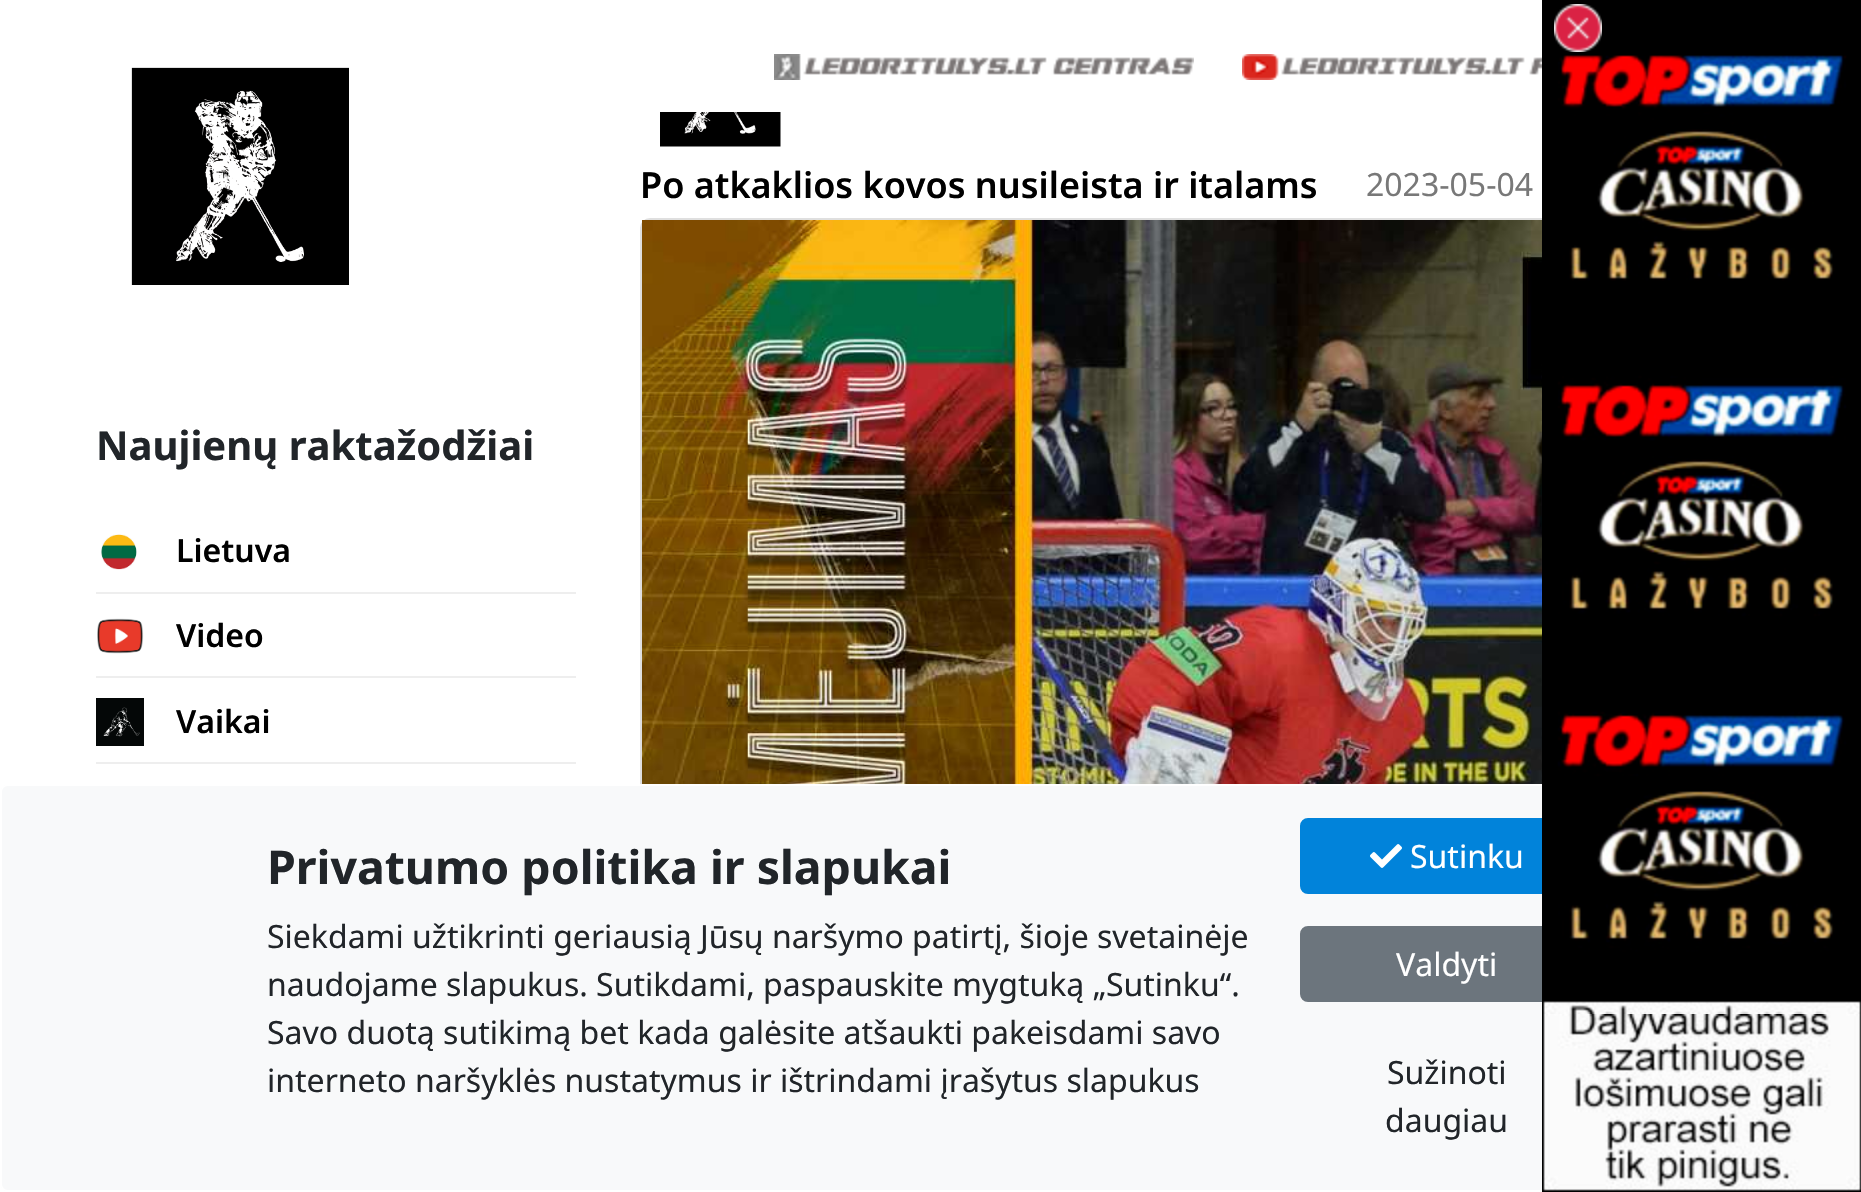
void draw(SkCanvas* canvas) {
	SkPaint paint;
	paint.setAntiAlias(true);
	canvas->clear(0xffffffff);
	canvas->drawImageRect(SkImages::DeferredFromEncodedData(SkData::MakeFromFileName("img1.png")), SkRect::MakeXYWH(774, 54, 420, 26), SkSamplingOptions());
	canvas->drawImageRect(SkImages::DeferredFromEncodedData(SkData::MakeFromFileName("img2.png")), SkRect::MakeXYWH(1242, 54, 300, 26), SkSamplingOptions());
	paint.setStroke(true);
	paint.setStrokeWidth(2);
	paint.setColor(0xffdfdfdf);
	canvas->drawRoundRect(SkRect::MakeXYWH(641, 219, 1060, 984), 9, 9, paint);
	paint.setStroke(false);
	paint.setColor(0xfff8f9fa);
	canvas->drawRoundRect(SkRect::MakeXYWH(1, 785, 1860, 406), 7, 7, paint);
	paint.setStroke(true);
	paint.setColor(0xffffffff);
	canvas->drawRoundRect(SkRect::MakeXYWH(1, 785, 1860, 406), 7, 7, paint);
	paint.setStroke(false);
	paint.setColor(0xff0183da);
	canvas->drawRoundRect(SkRect::MakeXYWH(1301, 819, 294, 74), 7, 7, paint);
	paint.setStroke(true);
	canvas->drawRoundRect(SkRect::MakeXYWH(1301, 819, 294, 74), 7, 7, paint);
	paint.setStroke(false);
	paint.setColor(0xff6c757d);
	canvas->drawRoundRect(SkRect::MakeXYWH(1301, 927, 294, 74), 7, 7, paint);
	paint.setStroke(true);
	canvas->drawRoundRect(SkRect::MakeXYWH(1301, 927, 294, 74), 7, 7, paint);
	canvas->drawImageRect(SkImages::DeferredFromEncodedData(SkData::MakeFromFileName("img3.png")), SkRect::MakeXYWH(1542, 0, 319, 1192), SkSamplingOptions());
	canvas->drawImageRect(SkImages::DeferredFromEncodedData(SkData::MakeFromFileName("img4.png")), SkRect::MakeXYWH(1554, 4, 48, 48), SkSamplingOptions());
	canvas->drawImageRect(SkImages::DeferredFromEncodedData(SkData::MakeFromFileName("img5.png")), SkRect::MakeXYWH(660, 112, 121, 35), SkSamplingOptions());
	SkFont f1(fontMgr->matchFamilyStyle("Noto Sans", SkFontStyle(600, SkFontStyle::kNormal_Width, SkFontStyle::kUpright_Slant)), 36);
	f1.setSubpixel(true);
	paint.setStroke(false);
	paint.setColor(0xff000000);
	canvas->drawString("Po atkaklios kovos nusileista ir italams", 640, 198, f1, paint);
	SkFont f2(fontMgr->matchFamilyStyle("Noto Sans", SkFontStyle::Normal()), 32);
	f2.setSubpixel(true);
	paint.setColor(0xff787878);
	canvas->drawString("2023-05-04", 1366, 196, f2, paint);
	canvas->drawImageRect(SkImages::DeferredFromEncodedData(SkData::MakeFromFileName("img6.png")), SkRect::MakeXYWH(642, 220, 900, 564), SkSamplingOptions());
	canvas->drawImageRect(SkImages::DeferredFromEncodedData(SkData::MakeFromFileName("img7.png")), SkRect::MakeXYWH(131, 67, 218, 218), SkSamplingOptions());
	SkFont f3(fontMgr->matchFamilyStyle("Noto Sans", SkFontStyle::Bold()), 40);
	f3.setSubpixel(true);
	paint.setColor(0xff212529);
	canvas->drawString("Naujienų raktažodžiai", 96, 460, f3, paint);
	paint.setColor(0xffeeeeee);
	canvas->drawRect(SkRect::MakeXYWH(96, 592, 480, 2), paint);
	canvas->drawImageRect(SkImages::DeferredFromEncodedData(SkData::MakeFromFileName("img8.png")), SkRect::MakeXYWH(101, 534, 36, 36), SkSamplingOptions());
	SkFont f4(fontMgr->matchFamilyStyle("Noto Sans", SkFontStyle(600, SkFontStyle::kNormal_Width, SkFontStyle::kUpright_Slant)), 32);
	f4.setSubpixel(true);
	paint.setColor(0xff000000);
	canvas->drawString("Lietuva", 176, 562, f4, paint);
	paint.setColor(0xffeeeeee);
	canvas->drawRect(SkRect::MakeXYWH(96, 676, 480, 2), paint);
	canvas->drawImageRect(SkImages::DeferredFromEncodedData(SkData::MakeFromFileName("img9.png")), SkRect::MakeXYWH(97, 618, 47, 36), SkSamplingOptions());
	paint.setColor(0xff000000);
	canvas->drawString("Video", 176, 647, f4, paint);
	paint.setColor(0xffeeeeee);
	canvas->drawRect(SkRect::MakeXYWH(96, 762, 480, 2), paint);
	canvas->drawImageRect(SkImages::DeferredFromEncodedData(SkData::MakeFromFileName("img10.png")), SkRect::MakeXYWH(96, 698, 48, 48), SkSamplingOptions());
	paint.setColor(0xff000000);
	canvas->drawString("Vaikai", 176, 733, f4, paint);
	SkFont f5(fontMgr->matchFamilyStyle("Noto Sans", SkFontStyle::Bold()), 46.4);
	f5.setSubpixel(true);
	paint.setColor(0xff212529);
	canvas->drawString("Privatumo politika ir slapukai", 267, 884, f5, paint);
	canvas->drawString("Siekdami užtikrinti geriausią Jūsų naršymo patirtį, šioje svetainėje", 267, 948, f2, paint);
	canvas->drawString("naudojame slapukus. Sutikdami, paspauskite mygtuką „Sutinku“.", 267, 996, f2, paint);
	canvas->drawString("Savo duotą sutikimą bet kada galėsite atšaukti pakeisdami savo", 267, 1044, f2, paint);
	canvas->drawString("interneto naršyklės nustatymus ir ištrindami įrašytus slapukus", 267, 1092, f2, paint);
	canvas->drawImageRect(SkImages::DeferredFromEncodedData(SkData::MakeFromFileName("img11.png")), SkRect::MakeXYWH(1370, 844, 32, 24), SkSamplingOptions());
	paint.setColor(0xffffffff);
	canvas->drawString("Sutinku", 1410, 868, f2, paint);
	canvas->drawString("Valdyti", 1396, 976, f2, paint);
	paint.setColor(0xff212529);
	canvas->drawString("Sužinoti", 1387, 1084, f2, paint);
	canvas->drawString("daugiau", 1385, 1132, f2, paint);
}
